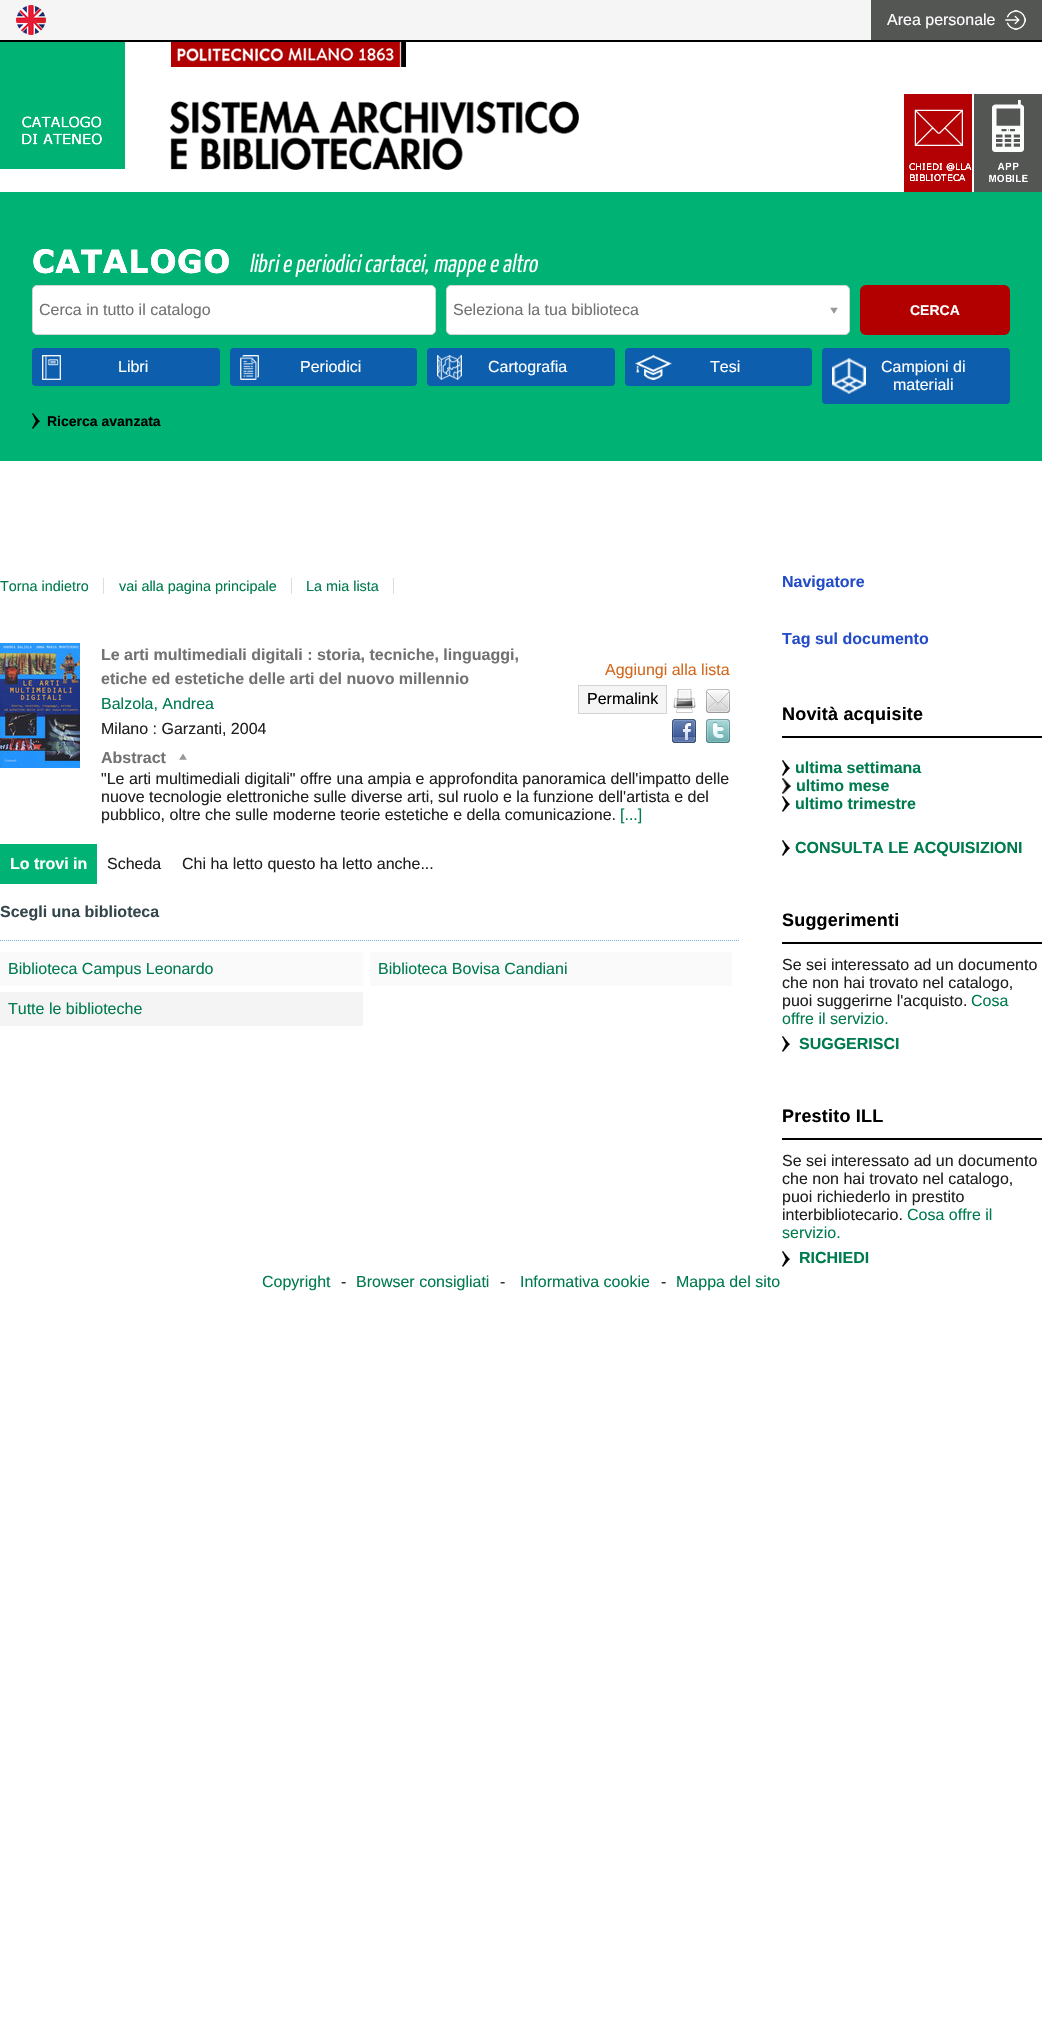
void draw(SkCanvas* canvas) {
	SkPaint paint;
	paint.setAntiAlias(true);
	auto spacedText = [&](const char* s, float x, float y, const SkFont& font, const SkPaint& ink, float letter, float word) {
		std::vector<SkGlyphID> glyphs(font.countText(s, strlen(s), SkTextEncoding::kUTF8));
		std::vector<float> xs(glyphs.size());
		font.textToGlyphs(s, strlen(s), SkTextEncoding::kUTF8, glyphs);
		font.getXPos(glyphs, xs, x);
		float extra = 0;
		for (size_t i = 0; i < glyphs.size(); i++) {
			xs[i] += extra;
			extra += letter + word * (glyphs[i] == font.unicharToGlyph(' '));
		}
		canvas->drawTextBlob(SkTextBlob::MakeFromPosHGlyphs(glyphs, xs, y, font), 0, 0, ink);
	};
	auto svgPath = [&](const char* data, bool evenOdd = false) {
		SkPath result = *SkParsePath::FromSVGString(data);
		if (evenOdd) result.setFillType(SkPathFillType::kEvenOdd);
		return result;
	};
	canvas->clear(0xffffffff);
	paint.setColor(0xfff5f5f5);
	canvas->drawRect(SkRect::MakeXYWH(0, 0, 871, 40), paint);
	paint.setColor(0xfff8f8f8);
	canvas->drawRect(SkRect::MakeXYWH(0, 0, 1, 1), paint);
	paint.setColor(0xff000000);
	canvas->drawRect(SkRect::MakeXYWH(0, 40, 1042, 2), paint);
	canvas->drawImageRect(SkImages::DeferredFromEncodedData(SkData::MakeFromFileName("img1.png")), SkRect::MakeXYWH(16, 5, 30, 30), SkSamplingOptions());
	paint.setColor(0xff545654);
	canvas->drawRect(SkRect::MakeXYWH(871, 0, 171, 40), paint);
	canvas->drawImageRect(SkImages::DeferredFromEncodedData(SkData::MakeFromFileName("img2.png")), SkRect::MakeXYWH(1005, 10, 21, 20), SkSamplingOptions());
	SkFont f1(fontMgr->matchFamilyStyle("Liberation Sans", SkFontStyle::Normal()), 16);
	f1.setSubpixel(true);
	paint.setColor(0xffffffff);
	canvas->drawString("Area personale", 887, 25, f1, paint);
	canvas->drawImageRect(SkImages::DeferredFromEncodedData(SkData::MakeFromFileName("img3.png")), SkRect::MakeXYWH(0, 42, 579, 128), SkSamplingOptions());
	canvas->drawImageRect(SkImages::DeferredFromEncodedData(SkData::MakeFromFileName("img4.png")), SkRect::MakeXYWH(904, 94, 68, 98), SkSamplingOptions());
	canvas->drawImageRect(SkImages::DeferredFromEncodedData(SkData::MakeFromFileName("img5.png")), SkRect::MakeXYWH(974, 94, 68, 98), SkSamplingOptions());
	paint.setColor(0xff00b274);
	canvas->drawRect(SkRect::MakeXYWH(0, 192, 1042, 269), paint);
	canvas->drawImageRect(SkImages::DeferredFromEncodedData(SkData::MakeFromFileName("img6.png")), SkRect::MakeXYWH(33, 249, 505, 28), SkSamplingOptions());
	paint.setColor(0xffffffff);
	canvas->drawRoundRect(SkRect::MakeXYWH(32.5, 285.5, 403, 49), 4.5, 4.5, paint);
	paint.setStroke(true);
	paint.setStrokeWidth(1);
	paint.setColor(0xffd3d3d3);
	canvas->drawRoundRect(SkRect::MakeXYWH(32.5, 285.5, 403, 49), 4.5, 4.5, paint);
	paint.setStroke(false);
	paint.setColor(0xff727272);
	canvas->drawString("Cerca in tutto il catalogo", 39, 315, f1, paint);
	paint.setColor(0xffffffff);
	canvas->drawRoundRect(SkRect::MakeXYWH(446.5, 285.5, 403, 49), 4.5, 4.5, paint);
	paint.setStroke(true);
	paint.setColor(0xffd3d3d3);
	canvas->drawRoundRect(SkRect::MakeXYWH(446.5, 285.5, 403, 49), 4.5, 4.5, paint);
	paint.setStroke(false);
	paint.setColor(0xff727272);
	canvas->drawString("Seleziona la tua biblioteca", 453, 315, f1, paint);
	canvas->drawImageRect(SkImages::DeferredFromEncodedData(SkData::MakeFromFileName("img7.png")), SkRect::MakeXYWH(830, 307, 8, 7), SkSamplingOptions());
	paint.setColor(0xffb20000);
	canvas->drawRoundRect(SkRect::MakeXYWH(860, 285, 150, 50), 6, 6, paint);
	SkFont f2(fontMgr->matchFamilyStyle("Liberation Sans", SkFontStyle::Bold()), 14);
	f2.setSubpixel(true);
	paint.setColor(0xffffffff);
	canvas->drawString("CERCA", 910, 315, f2, paint);
	canvas->drawImageRect(SkImages::DeferredFromEncodedData(SkData::MakeFromFileName("img8.png")), SkRect::MakeXYWH(32, 413, 8, 16), SkSamplingOptions());
	paint.setColor(0xff000000);
	canvas->drawString("Ricerca avanzata", 47, 426, f2, paint);
	paint.setColor(0xff0d5ead);
	canvas->drawRoundRect(SkRect::MakeXYWH(32, 348, 188, 38), 4, 4, paint);
	canvas->drawImageRect(SkImages::DeferredFromEncodedData(SkData::MakeFromFileName("img9.png")), SkRect::MakeXYWH(42, 355, 19, 25), SkSamplingOptions());
	paint.setColor(0xffffffff);
	canvas->drawString("Libri", 118, 372, f1, paint);
	paint.setColor(0xff0d5ead);
	canvas->drawRoundRect(SkRect::MakeXYWH(230, 348, 187, 38), 4, 4, paint);
	canvas->drawImageRect(SkImages::DeferredFromEncodedData(SkData::MakeFromFileName("img10.png")), SkRect::MakeXYWH(240, 355, 19, 25), SkSamplingOptions());
	paint.setColor(0xffffffff);
	canvas->drawString("Periodici", 300, 372, f1, paint);
	paint.setColor(0xff0d5ead);
	canvas->drawRoundRect(SkRect::MakeXYWH(427, 348, 188, 38), 4, 4, paint);
	canvas->drawImageRect(SkImages::DeferredFromEncodedData(SkData::MakeFromFileName("img11.png")), SkRect::MakeXYWH(437, 355, 25, 25), SkSamplingOptions());
	paint.setColor(0xffffffff);
	canvas->drawString("Cartografia", 488, 372, f1, paint);
	paint.setColor(0xff0d5ead);
	canvas->drawRoundRect(SkRect::MakeXYWH(625, 348, 187, 38), 4, 4, paint);
	canvas->drawImageRect(SkImages::DeferredFromEncodedData(SkData::MakeFromFileName("img12.png")), SkRect::MakeXYWH(635, 355, 37, 25), SkSamplingOptions());
	paint.setColor(0xffffffff);
	canvas->drawString("Tesi", 710, 372, f1, paint);
	paint.setColor(0xff0d5ead);
	canvas->drawRoundRect(SkRect::MakeXYWH(822, 348, 188, 56), 4, 4, paint);
	canvas->drawImageRect(SkImages::DeferredFromEncodedData(SkData::MakeFromFileName("img13.png")), SkRect::MakeXYWH(832, 358, 34, 36), SkSamplingOptions());
	paint.setColor(0xffffffff);
	canvas->drawString("Campioni di", 881, 372, f1, paint);
	canvas->drawString("materiali", 893, 390, f1, paint);
	SkFont f3(fontMgr->matchFamilyStyle("Liberation Sans", SkFontStyle::Normal()), 14.4);
	f3.setSubpixel(true);
	paint.setColor(0xff007b4e);
	canvas->drawString("Torna indietro", 0, 591, f3, paint);
	paint.setColor(0xffdddddd);
	canvas->drawRect(SkRect::MakeXYWH(103, 578, 1, 16), paint);
	paint.setColor(0xff007b4e);
	canvas->drawString("vai alla pagina principale", 119, 591, f3, paint);
	paint.setColor(0xffdddddd);
	canvas->drawRect(SkRect::MakeXYWH(291, 578, 1, 16), paint);
	paint.setColor(0xff007b4e);
	canvas->drawString("La mia lista", 306, 591, f3, paint);
	paint.setColor(0xffdddddd);
	canvas->drawRect(SkRect::MakeXYWH(393, 578, 1, 16), paint);
	canvas->drawImageRect(SkImages::DeferredFromEncodedData(SkData::MakeFromFileName("img14.png")), SkRect::MakeXYWH(0, 643, 80, 125), SkSamplingOptions());
	SkFont f4(fontMgr->matchFamilyStyle("Liberation Sans", SkFontStyle::Bold()), 16);
	f4.setSubpixel(true);
	paint.setColor(0xff727272);
	canvas->drawString("Le arti multimediali digitali : storia, tecniche, linguaggi,", 101, 660, f4, paint);
	canvas->drawString("etiche ed estetiche delle arti del nuovo millennio", 101, 684, f4, paint);
	paint.setColor(0xffd2691e);
	canvas->drawString("Aggiungi alla lista", 605, 675, f1, paint);
	paint.setColor(0xfff5f5f5);
	canvas->drawRect(SkRect::MakeXYWH(578.5, 685.5, 88, 28), paint);
	paint.setStroke(true);
	paint.setColor(0xffd3d3d3);
	canvas->drawRect(SkRect::MakeXYWH(578.5, 685.5, 88, 28), paint);
	paint.setStroke(false);
	paint.setColor(0xff000000);
	canvas->drawString("Permalink", 587, 704, f1, paint);
	canvas->drawImageRect(SkImages::DeferredFromEncodedData(SkData::MakeFromFileName("img15.png")), SkRect::MakeXYWH(673, 689, 23, 24), SkSamplingOptions());
	canvas->drawImageRect(SkImages::DeferredFromEncodedData(SkData::MakeFromFileName("img16.png")), SkRect::MakeXYWH(706, 689, 24, 24), SkSamplingOptions());
	canvas->drawImageRect(SkImages::DeferredFromEncodedData(SkData::MakeFromFileName("img17.png")), SkRect::MakeXYWH(672, 719, 24, 24), SkSamplingOptions());
	canvas->drawImageRect(SkImages::DeferredFromEncodedData(SkData::MakeFromFileName("img18.png")), SkRect::MakeXYWH(706, 719, 24, 24), SkSamplingOptions());
	paint.setColor(0xff007b4e);
	canvas->drawString("Balzola, Andrea", 101, 709, f1, paint);
	paint.setColor(0xff202020);
	canvas->drawString("Milano : Garzanti, 2004", 101, 734, f1, paint);
	paint.setColor(0xff727272);
	canvas->drawString("Abstract", 101, 763, f4, paint);
	canvas->drawImageRect(SkImages::DeferredFromEncodedData(SkData::MakeFromFileName("img19.png")), SkRect::MakeXYWH(179, 753, 8, 7), SkSamplingOptions());
	paint.setColor(0xff202020);
	canvas->drawString("\"Le arti multimediali digitali\" offre una ampia e approfondita panoramica dell'impatto delle", 101, 784, f1, paint);
	canvas->drawString("nuove tecnologie elettroniche sulle diverse arti, sul ruolo e la funzione dell'artista e del", 101, 802, f1, paint);
	canvas->drawString("pubblico, oltre che sulle moderne teorie estetiche e della comunicazione.", 101, 820, f1, paint);
	paint.setColor(0xff007b4e);
	canvas->drawString("[...]", 620, 820, f1, paint);
	paint.setColor(0xff00b274);
	canvas->drawRect(SkRect::MakeXYWH(0, 844, 97, 40), paint);
	paint.setColor(0xffffffff);
	canvas->drawString("Lo trovi in", 10, 869, f4, paint);
	paint.setColor(0xff202020);
	canvas->drawString("Scheda", 107, 869, f1, paint);
	canvas->drawString("Chi ha letto questo ha letto anche...", 182, 869, f1, paint);
	paint.setStroke(true);
	paint.setColor(0xff7cb1db);
	paint.setPathEffect(SkDashPathEffect::Make({{1, 1}}, 0));
	canvas->drawPath(svgPath("M0 940.5H740"), paint);
	paint.setPathEffect(nullptr);
	paint.setStroke(false);
	paint.setColor(0xff34464c);
	canvas->drawString("Scegli una biblioteca", 0, 917, f4, paint);
	paint.setColor(0xfffafafa);
	canvas->drawRect(SkRect::MakeXYWH(0, 952, 363, 34), paint);
	paint.setColor(0xff007b4e);
	canvas->drawString("Biblioteca Campus Leonardo", 8, 974, f1, paint);
	paint.setColor(0xfffafafa);
	canvas->drawRect(SkRect::MakeXYWH(370, 952, 362, 34), paint);
	paint.setColor(0xff007b4e);
	canvas->drawString("Biblioteca Bovisa Candiani", 378, 974, f1, paint);
	paint.setColor(0xfff4f4f4);
	canvas->drawRect(SkRect::MakeXYWH(0, 992, 363, 34), paint);
	paint.setColor(0xff007b4e);
	canvas->drawString("Tutte le biblioteche", 8, 1014, f1, paint);
	paint.setColor(0xff234dc8);
	canvas->drawString("Navigatore", 782, 587, f4, paint);
	canvas->drawString("Tag sul documento", 782, 644, f4, paint);
	paint.setColor(0xff000000);
	canvas->drawRect(SkRect::MakeXYWH(782, 736, 260, 2), paint);
	SkFont f5(fontMgr->matchFamilyStyle("Liberation Sans", SkFontStyle::Bold()), 18);
	f5.setSubpixel(true);
	spacedText("Novità acquisite", 782, 720, f5, paint, 0.2, 0);
	canvas->drawImageRect(SkImages::DeferredFromEncodedData(SkData::MakeFromFileName("img20.png")), SkRect::MakeXYWH(782, 760, 8, 16), SkSamplingOptions());
	paint.setColor(0xff007b4e);
	canvas->drawString("ultima settimana", 795, 773, f4, paint);
	canvas->drawImageRect(SkImages::DeferredFromEncodedData(SkData::MakeFromFileName("img21.png")), SkRect::MakeXYWH(782, 778, 9, 16), SkSamplingOptions());
	canvas->drawString("ultimo mese", 796, 791, f4, paint);
	canvas->drawImageRect(SkImages::DeferredFromEncodedData(SkData::MakeFromFileName("img20.png")), SkRect::MakeXYWH(782, 796, 8, 16), SkSamplingOptions());
	canvas->drawString("ultimo trimestre", 795, 809, f4, paint);
	canvas->drawImageRect(SkImages::DeferredFromEncodedData(SkData::MakeFromFileName("img20.png")), SkRect::MakeXYWH(782, 840, 8, 16), SkSamplingOptions());
	canvas->drawString("CONSULTA LE ACQUISIZIONI", 795, 853, f4, paint);
	paint.setColor(0xff000000);
	canvas->drawRect(SkRect::MakeXYWH(782, 942, 260, 2), paint);
	spacedText("Suggerimenti", 782, 926, f5, paint, 0.2, 0);
	paint.setColor(0xff202020);
	canvas->drawString("Se sei interessato ad un documento", 782, 970, f1, paint);
	canvas->drawString("che non hai trovato nel catalogo,", 782, 988, f1, paint);
	canvas->drawString("puoi suggerirne l'acquisto.", 782, 1006, f1, paint);
	paint.setColor(0xff007b4e);
	canvas->drawString("Cosa", 971, 1006, f1, paint);
	canvas->drawString("offre il servizio.", 782, 1024, f1, paint);
	canvas->drawImageRect(SkImages::DeferredFromEncodedData(SkData::MakeFromFileName("img20.png")), SkRect::MakeXYWH(782, 1036, 8, 16), SkSamplingOptions());
	canvas->drawString("SUGGERISCI", 799, 1049, f4, paint);
	paint.setColor(0xff000000);
	canvas->drawRect(SkRect::MakeXYWH(782, 1138, 260, 2), paint);
	spacedText("Prestito ILL", 782, 1122, f5, paint, 0.2, 0);
	paint.setColor(0xff202020);
	canvas->drawString("Se sei interessato ad un documento", 782, 1166, f1, paint);
	canvas->drawString("che non hai trovato nel catalogo,", 782, 1184, f1, paint);
	canvas->drawString("puoi richiederlo in prestito", 782, 1202, f1, paint);
	canvas->drawString("interbibliotecario.", 782, 1220, f1, paint);
	paint.setColor(0xff007b4e);
	canvas->drawString("Cosa offre il", 907, 1220, f1, paint);
	canvas->drawString("servizio.", 782, 1238, f1, paint);
	canvas->drawImageRect(SkImages::DeferredFromEncodedData(SkData::MakeFromFileName("img20.png")), SkRect::MakeXYWH(782, 1251, 8, 16), SkSamplingOptions());
	canvas->drawString("RICHIEDI", 799, 1263, f4, paint);
	canvas->drawString("Copyright", 262, 1287, f1, paint);
	paint.setColor(0xff202020);
	canvas->drawString("-", 341, 1287, f1, paint);
	paint.setColor(0xff007b4e);
	canvas->drawString("Browser consigliati", 356, 1287, f1, paint);
	paint.setColor(0xff202020);
	canvas->drawString("-", 500, 1287, f1, paint);
	paint.setColor(0xff007b4e);
	canvas->drawString("Informativa cookie", 520, 1287, f1, paint);
	paint.setColor(0xff202020);
	canvas->drawString("-", 661, 1287, f1, paint);
	paint.setColor(0xff007b4e);
	canvas->drawString("Mappa del sito", 676, 1287, f1, paint);
}
